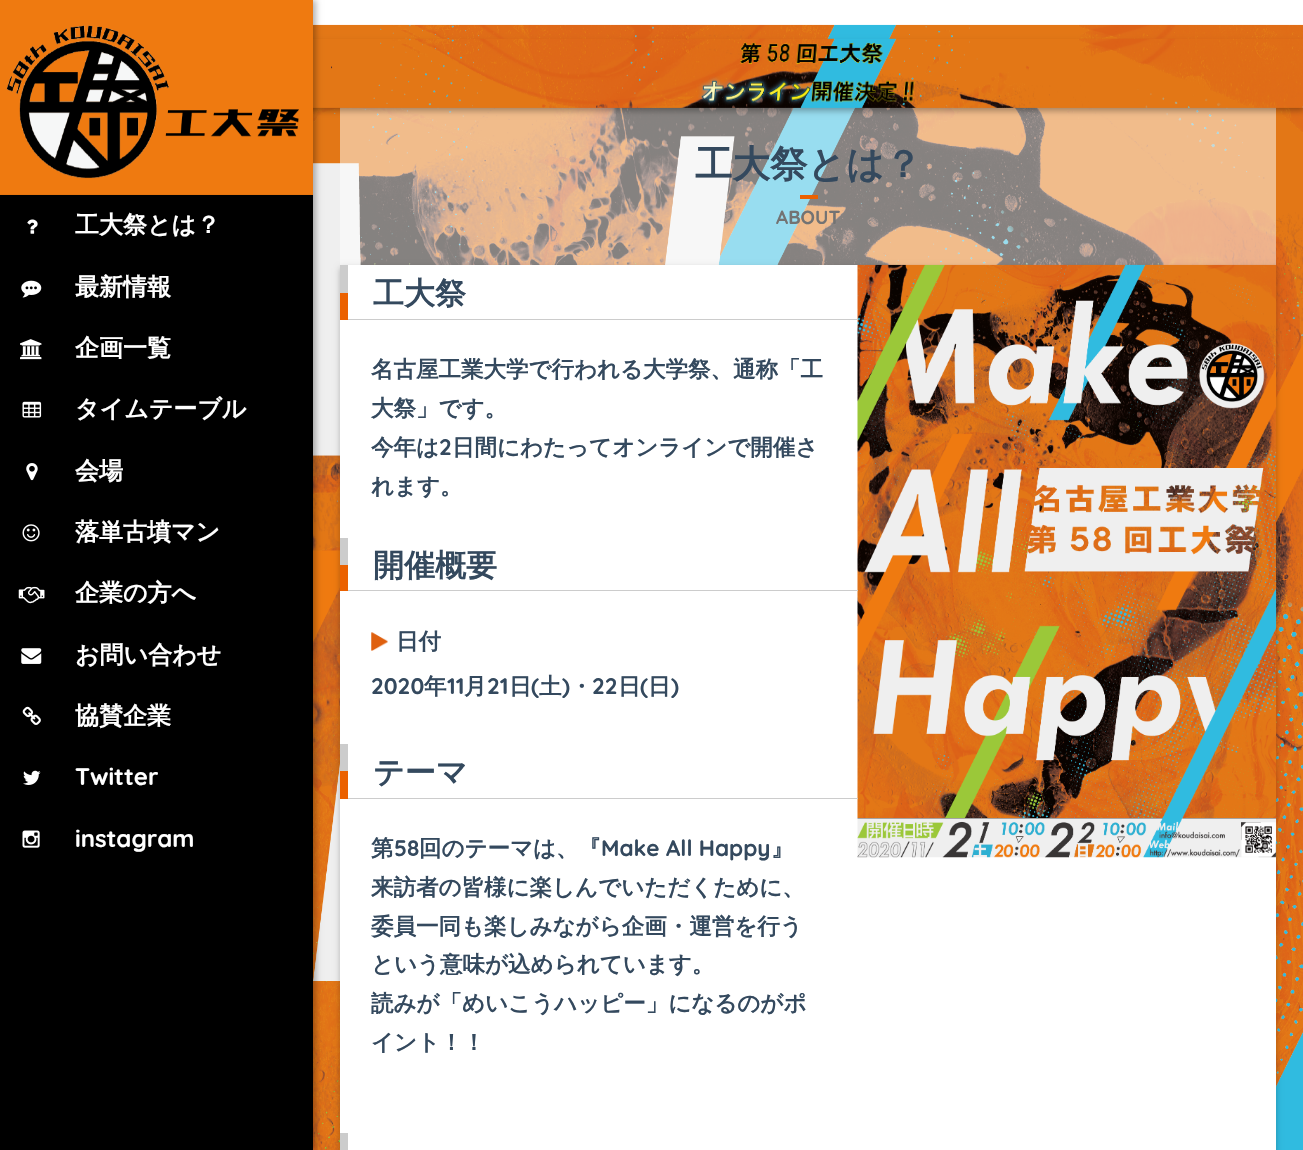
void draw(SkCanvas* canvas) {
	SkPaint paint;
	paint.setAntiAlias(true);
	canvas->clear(0xffffffff);
	canvas->drawImageRect(SkImages::DeferredFromEncodedData(SkData::MakeFromFileName("img15.png")), SkRect::MakeXYWH(313, 24, 990, 1126), SkSamplingOptions());
	paint.setColor(0x80ffffff);
	canvas->drawRect(SkRect::MakeXYWH(340, 107, 936, 158), paint);
	paint.setColor(0x4d000000);
	paint.setMaskFilter(SkMaskFilter::MakeBlur(kNormal_SkBlurStyle, 3));
	canvas->drawRect(SkRect::MakeXYWH(0, 43, 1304, 68), paint);
	paint.setMaskFilter(nullptr);
	canvas->drawImageRect(SkImages::DeferredFromEncodedData(SkData::MakeFromFileName("img1.png")), SkRect::MakeXYWH(313, 38, 990, 70), SkSamplingOptions());
	canvas->drawImageRect(SkImages::DeferredFromEncodedData(SkData::MakeFromFileName("img2.png")), SkRect::MakeXYWH(698, 42, 217, 64), SkSamplingOptions());
	paint.setMaskFilter(SkMaskFilter::MakeBlur(kNormal_SkBlurStyle, 3));
	canvas->drawRect(SkRect::MakeXYWH(4, 0, 312, 1150), paint);
	paint.setMaskFilter(nullptr);
	paint.setColor(0xff000000);
	canvas->drawRect(SkRect::MakeXYWH(0, 194, 313, 956), paint);
	canvas->drawImageRect(SkImages::DeferredFromEncodedData(SkData::MakeFromFileName("img3.png")), SkRect::MakeXYWH(0, 0, 313, 195), SkSamplingOptions());
	canvas->drawImageRect(SkImages::DeferredFromEncodedData(SkData::MakeFromFileName("img4.png")), SkRect::MakeXYWH(27, 219, 11, 15), SkSamplingOptions());
	SkFont f1(fontMgr->matchFamilyStyle("WenQuanYi Zen Hei", SkFontStyle::Bold()), 24);
	f1.setSubpixel(true);
	paint.setColor(0xffffffff);
	canvas->drawString("工大祭とは？", 75, 233, f1, paint);
	canvas->drawImageRect(SkImages::DeferredFromEncodedData(SkData::MakeFromFileName("img5.png")), SkRect::MakeXYWH(21, 280, 21, 18), SkSamplingOptions());
	canvas->drawString("最新情報", 75, 295, f1, paint);
	canvas->drawImageRect(SkImages::DeferredFromEncodedData(SkData::MakeFromFileName("img6.png")), SkRect::MakeXYWH(20, 339, 22, 21), SkSamplingOptions());
	canvas->drawString("企画一覧", 75, 356, f1, paint);
	canvas->drawImageRect(SkImages::DeferredFromEncodedData(SkData::MakeFromFileName("img7.png")), SkRect::MakeXYWH(22, 401, 20, 17), SkSamplingOptions());
	canvas->drawString("タイムテーブル", 75, 417, f1, paint);
	canvas->drawImageRect(SkImages::DeferredFromEncodedData(SkData::MakeFromFileName("img8.png")), SkRect::MakeXYWH(26, 463, 12, 18), SkSamplingOptions());
	canvas->drawString("会場", 75, 479, f1, paint);
	canvas->drawImageRect(SkImages::DeferredFromEncodedData(SkData::MakeFromFileName("img9.png")), SkRect::MakeXYWH(22, 524, 18, 18), SkSamplingOptions());
	canvas->drawString("落単古墳マン", 75, 540, f1, paint);
	canvas->drawImageRect(SkImages::DeferredFromEncodedData(SkData::MakeFromFileName("img10.png")), SkRect::MakeXYWH(18, 586, 27, 18), SkSamplingOptions());
	canvas->drawString("企業の方へ", 75, 601, f1, paint);
	canvas->drawImageRect(SkImages::DeferredFromEncodedData(SkData::MakeFromFileName("img11.png")), SkRect::MakeXYWH(21, 648, 21, 16), SkSamplingOptions());
	canvas->drawString("お問い合わせ", 75, 663, f1, paint);
	canvas->drawImageRect(SkImages::DeferredFromEncodedData(SkData::MakeFromFileName("img12.png")), SkRect::MakeXYWH(22, 706, 19, 19), SkSamplingOptions());
	canvas->drawString("協賛企業", 75, 724, f1, paint);
	canvas->drawImageRect(SkImages::DeferredFromEncodedData(SkData::MakeFromFileName("img13.png")), SkRect::MakeXYWH(23, 770, 18, 15), SkSamplingOptions());
	SkFont f2(fontMgr->matchFamilyStyle("Quicksand", SkFontStyle::Bold()), 24);
	f2.setSubpixel(true);
	canvas->drawString("Twitter", 75, 785, f2, paint);
	canvas->drawImageRect(SkImages::DeferredFromEncodedData(SkData::MakeFromFileName("img14.png")), SkRect::MakeXYWH(22, 830, 18, 18), SkSamplingOptions());
	canvas->drawString("instagram", 75, 847, f2, paint);
	SkFont f3(fontMgr->matchFamilyStyle("WenQuanYi Zen Hei", SkFontStyle::Bold()), 37.5);
	f3.setSubpixel(true);
	paint.setColor(0xff34495e);
	canvas->drawString("工大祭とは？", 695, 177, f3, paint);
	paint.setColor(0xffeb6100);
	canvas->drawRect(SkRect::MakeXYWH(800, 195, 18, 4), paint);
	SkFont f4(fontMgr->matchFamilyStyle("Quicksand", SkFontStyle::Bold()), 19);
	f4.setSubpixel(true);
	paint.setColor(0xff737373);
	canvas->drawString("ABOUT", 776, 224, f4, paint);
	paint.setColor(0x42000000);
	paint.setMaskFilter(SkMaskFilter::MakeBlur(kNormal_SkBlurStyle, 3));
	canvas->drawRect(SkRect::MakeXYWH(340, 268, 936, 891), paint);
	paint.setMaskFilter(nullptr);
	paint.setColor(0xffffffff);
	canvas->drawRect(SkRect::MakeXYWH(340, 265, 936, 885), paint);
	paint.setColor(0xffcccccc);
	canvas->drawRect(SkRect::MakeXYWH(340, 265, 8, 28), paint);
	paint.setColor(0xffeb6100);
	canvas->drawRect(SkRect::MakeXYWH(340, 293, 8, 27), paint);
	SkFont f5(fontMgr->matchFamilyStyle("WenQuanYi Zen Hei", SkFontStyle::Bold()), 31);
	f5.setSubpixel(true);
	paint.setColor(0xff34495e);
	canvas->drawString("工大祭", 373, 304, f5, paint);
	canvas->drawImageRect(SkImages::DeferredFromEncodedData(SkData::MakeFromFileName("img17.png")), SkRect::MakeXYWH(857, 264, 420, 594), SkSamplingOptions());
	paint.setColor(0xffcccccc);
	canvas->drawRect(SkRect::MakeXYWH(348, 319, 510, 1), paint);
	SkFont f6(fontMgr->matchFamilyStyle("WenQuanYi Zen Hei", SkFontStyle::Bold()), 22.5);
	f6.setSubpixel(true);
	paint.setColor(0xff34495e);
	canvas->drawString("名古屋工業大学で行われる大学祭、通称「工", 371, 377, f6, paint);
	canvas->drawString("大祭」です。", 371, 416, f6, paint);
	canvas->drawString("今年は", 371, 455, f6, paint);
	SkFont f7(fontMgr->matchFamilyStyle("Quicksand", SkFontStyle::Bold()), 22.5);
	f7.setSubpixel(true);
	canvas->drawString("2", 439, 455, f7, paint);
	canvas->drawString("日間にわたってオンラインで開催さ", 452, 455, f6, paint);
	canvas->drawString("れます。", 371, 494, f6, paint);
	paint.setColor(0xffcccccc);
	canvas->drawRect(SkRect::MakeXYWH(340, 538, 8, 27), paint);
	paint.setColor(0xffeb6100);
	canvas->drawRect(SkRect::MakeXYWH(340, 565, 8, 26), paint);
	paint.setColor(0xff34495e);
	canvas->drawString("開催概要", 373, 576, f5, paint);
	paint.setColor(0xffcccccc);
	canvas->drawRect(SkRect::MakeXYWH(348, 590, 510, 1), paint);
	canvas->drawImageRect(SkImages::DeferredFromEncodedData(SkData::MakeFromFileName("img16.png")), SkRect::MakeXYWH(371, 632, 17, 19), SkSamplingOptions());
	paint.setColor(0xff34495e);
	canvas->drawString("日付", 396, 649, f6, paint);
	canvas->drawString("2020", 371, 694, f7, paint);
	canvas->drawString("年", 424, 694, f6, paint);
	canvas->drawString("11", 447, 694, f7, paint);
	canvas->drawString("月", 464, 694, f6, paint);
	canvas->drawString("21", 487, 694, f7, paint);
	canvas->drawString("日", 509, 694, f6, paint);
	canvas->drawString("(", 531, 694, f7, paint);
	canvas->drawString("土", 539, 694, f6, paint);
	canvas->drawString(")", 562, 694, f7, paint);
	canvas->drawString("・", 570, 694, f6, paint);
	canvas->drawString("22", 592, 694, f7, paint);
	canvas->drawString("日", 618, 694, f6, paint);
	canvas->drawString("(", 640, 694, f7, paint);
	canvas->drawString("日", 648, 694, f6, paint);
	canvas->drawString(")", 671, 694, f7, paint);
	paint.setColor(0xffcccccc);
	canvas->drawRect(SkRect::MakeXYWH(340, 744, 8, 27), paint);
	paint.setColor(0xffeb6100);
	canvas->drawRect(SkRect::MakeXYWH(340, 771, 8, 28), paint);
	paint.setColor(0xff34495e);
	canvas->drawString("テーマ", 373, 783, f5, paint);
	paint.setColor(0xffcccccc);
	canvas->drawRect(SkRect::MakeXYWH(348, 798, 510, 1), paint);
	paint.setColor(0xff34495e);
	canvas->drawString("第", 371, 856, f6, paint);
	canvas->drawString("58", 394, 856, f7, paint);
	canvas->drawString("回のテーマは、『", 419, 856, f6, paint);
	canvas->drawString("Make All Happy", 601, 856, f7, paint);
	canvas->drawString("』", 771, 856, f6, paint);
	canvas->drawString("来訪者の皆様に楽しんでいただくために、", 371, 895, f6, paint);
	canvas->drawString("委員一同も楽しみながら企画・運営を行う", 371, 934, f6, paint);
	canvas->drawString("という意味が込められています。", 371, 972, f6, paint);
	canvas->drawString("読みが「めいこうハッピー」になるのがポ", 371, 1011, f6, paint);
	canvas->drawString("イント！！", 371, 1050, f6, paint);
	paint.setColor(0xffcccccc);
	canvas->drawRect(SkRect::MakeXYWH(340, 1133, 8, 17), paint);
}
